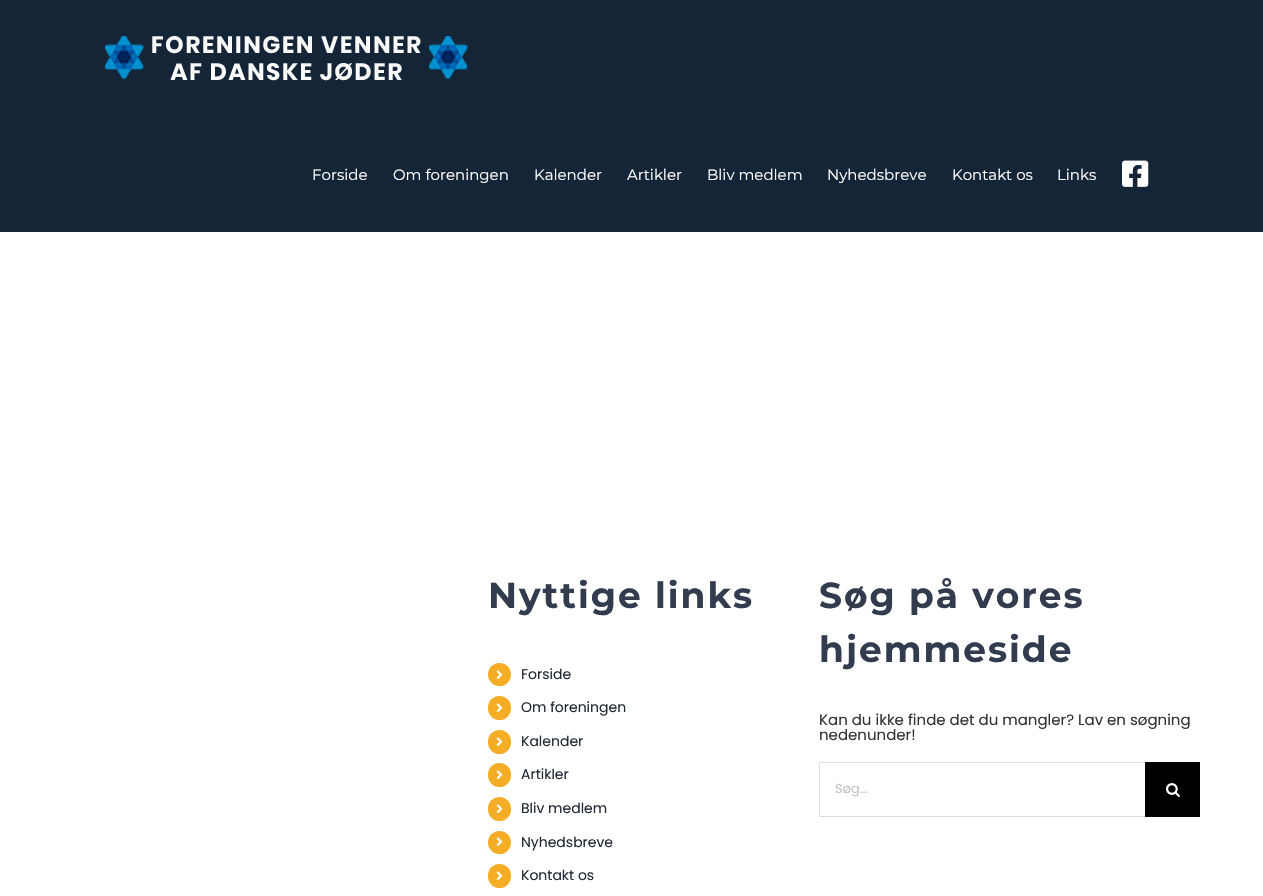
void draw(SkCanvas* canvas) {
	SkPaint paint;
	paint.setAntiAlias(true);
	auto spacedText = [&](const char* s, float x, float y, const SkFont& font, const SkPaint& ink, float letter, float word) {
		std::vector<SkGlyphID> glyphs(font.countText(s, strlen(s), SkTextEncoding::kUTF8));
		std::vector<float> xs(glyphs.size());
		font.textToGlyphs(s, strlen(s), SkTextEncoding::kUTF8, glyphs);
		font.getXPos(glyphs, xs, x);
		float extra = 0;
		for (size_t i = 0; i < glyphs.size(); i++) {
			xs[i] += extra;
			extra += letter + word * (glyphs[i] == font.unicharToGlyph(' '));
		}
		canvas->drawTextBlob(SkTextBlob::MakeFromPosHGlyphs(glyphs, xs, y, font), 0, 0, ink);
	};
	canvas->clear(0xffffffff);
	paint.setColor(0xff152538);
	canvas->drawRect(SkRect::MakeXYWH(0, 0, 1263, 232), paint);
	canvas->drawImageRect(SkImages::DeferredFromEncodedData(SkData::MakeFromFileName("img1.png")), SkRect::MakeXYWH(105, 36, 363, 45), SkSamplingOptions());
	SkFont f1(fontMgr->matchFamilyStyle("Montserrat", SkFontStyle::Normal()), 15);
	f1.setSubpixel(true);
	paint.setColor(0xffffffff);
	canvas->drawString("Forside", 312, 180, f1, paint);
	canvas->drawString("Om foreningen", 393, 180, f1, paint);
	canvas->drawString("Kalender", 534, 180, f1, paint);
	canvas->drawString("Artikler", 627, 180, f1, paint);
	canvas->drawString("Bliv medlem", 707, 180, f1, paint);
	canvas->drawString("Nyhedsbreve", 827, 180, f1, paint);
	canvas->drawString("Kontakt os", 952, 180, f1, paint);
	canvas->drawString("Links", 1057, 180, f1, paint);
	canvas->drawImageRect(SkImages::DeferredFromEncodedData(SkData::MakeFromFileName("img2.png")), SkRect::MakeXYWH(1122, 160, 27, 27), SkSamplingOptions());
	SkFont f2(fontMgr->matchFamilyStyle("Montserrat", SkFontStyle::Bold()), 36);
	f2.setSubpixel(true);
	paint.setColor(0xff333c4e);
	spacedText("Nyttige links", 488, 608, f2, paint, 2, 0);
	paint.setColor(0xfff4ad24);
	canvas->drawCircle(499.5, 674.5, 11.5, paint);
	canvas->drawImageRect(SkImages::DeferredFromEncodedData(SkData::MakeFromFileName("img3.png")), SkRect::MakeXYWH(496, 670, 7, 10), SkSamplingOptions());
	SkFont f3(fontMgr->matchFamilyStyle("Poppins", SkFontStyle::Normal()), 14);
	f3.setSubpixel(true);
	paint.setColor(0xff212934);
	canvas->drawString("Forside", 521, 679, f3, paint);
	paint.setColor(0xfff4ad24);
	canvas->drawRoundRect(SkRect::MakeXYWH(488, 696, 23, 24), 11.5, 11.5, paint);
	canvas->drawImageRect(SkImages::DeferredFromEncodedData(SkData::MakeFromFileName("img3.png")), SkRect::MakeXYWH(496, 703, 7, 10), SkSamplingOptions());
	paint.setColor(0xff212934);
	canvas->drawString("Om foreningen", 521, 712, f3, paint);
	paint.setColor(0xfff4ad24);
	canvas->drawRoundRect(SkRect::MakeXYWH(488, 730, 23, 24), 11.5, 11.5, paint);
	canvas->drawImageRect(SkImages::DeferredFromEncodedData(SkData::MakeFromFileName("img3.png")), SkRect::MakeXYWH(496, 737, 7, 10), SkSamplingOptions());
	paint.setColor(0xff212934);
	canvas->drawString("Kalender", 521, 746, f3, paint);
	paint.setColor(0xfff4ad24);
	canvas->drawRoundRect(SkRect::MakeXYWH(488, 763, 23, 24), 11.5, 11.5, paint);
	canvas->drawImageRect(SkImages::DeferredFromEncodedData(SkData::MakeFromFileName("img3.png")), SkRect::MakeXYWH(496, 770, 7, 10), SkSamplingOptions());
	paint.setColor(0xff212934);
	canvas->drawString("Artikler", 521, 779, f3, paint);
	paint.setColor(0xfff4ad24);
	canvas->drawRoundRect(SkRect::MakeXYWH(488, 797, 23, 24), 11.5, 11.5, paint);
	canvas->drawImageRect(SkImages::DeferredFromEncodedData(SkData::MakeFromFileName("img3.png")), SkRect::MakeXYWH(496, 804, 7, 10), SkSamplingOptions());
	paint.setColor(0xff212934);
	canvas->drawString("Bliv medlem", 521, 813, f3, paint);
	paint.setColor(0xfff4ad24);
	canvas->drawCircle(499.5, 842.5, 11.5, paint);
	canvas->drawImageRect(SkImages::DeferredFromEncodedData(SkData::MakeFromFileName("img3.png")), SkRect::MakeXYWH(496, 837, 7, 10), SkSamplingOptions());
	paint.setColor(0xff212934);
	canvas->drawString("Nyhedsbreve", 521, 847, f3, paint);
	paint.setColor(0xfff4ad24);
	canvas->drawRoundRect(SkRect::MakeXYWH(488, 864, 23, 24), 11.5, 11.5, paint);
	canvas->drawImageRect(SkImages::DeferredFromEncodedData(SkData::MakeFromFileName("img3.png")), SkRect::MakeXYWH(496, 871, 7, 10), SkSamplingOptions());
	paint.setColor(0xff212934);
	canvas->drawString("Kontakt os", 521, 880, f3, paint);
	paint.setColor(0xff333c4e);
	spacedText("Søg på vores", 819, 608, f2, paint, 2, 0);
	spacedText("hjemmeside", 819, 662, f2, paint, 2, 0);
	SkFont f4(fontMgr->matchFamilyStyle("Poppins", SkFontStyle::Normal()), 15);
	f4.setSubpixel(true);
	paint.setColor(0xff333333);
	canvas->drawString("Kan du ikke finde det du mangler? Lav en søgning", 819, 725, f4, paint);
	canvas->drawString("nedenunder!", 819, 740, f4, paint);
	paint.setColor(0xffdddddd);
	canvas->drawRect(SkRect::MakeXYWH(819, 762, 326, 1), paint);
	canvas->drawRect(SkRect::MakeXYWH(819, 816, 326, 1), paint);
	canvas->drawRect(SkRect::MakeXYWH(819, 762, 1, 55), paint);
	SkFont f5(fontMgr->matchFamilyStyle("Poppins", SkFontStyle::Normal()), 13);
	f5.setSubpixel(true);
	paint.setColor(0xffc5c5c5);
	canvas->drawString("Søg...", 835, 793, f5, paint);
	paint.setColor(0xff000000);
	canvas->drawRect(SkRect::MakeXYWH(1145, 762, 55, 55), paint);
	canvas->drawImageRect(SkImages::DeferredFromEncodedData(SkData::MakeFromFileName("img4.png")), SkRect::MakeXYWH(1166, 783, 14, 14), SkSamplingOptions());
}
